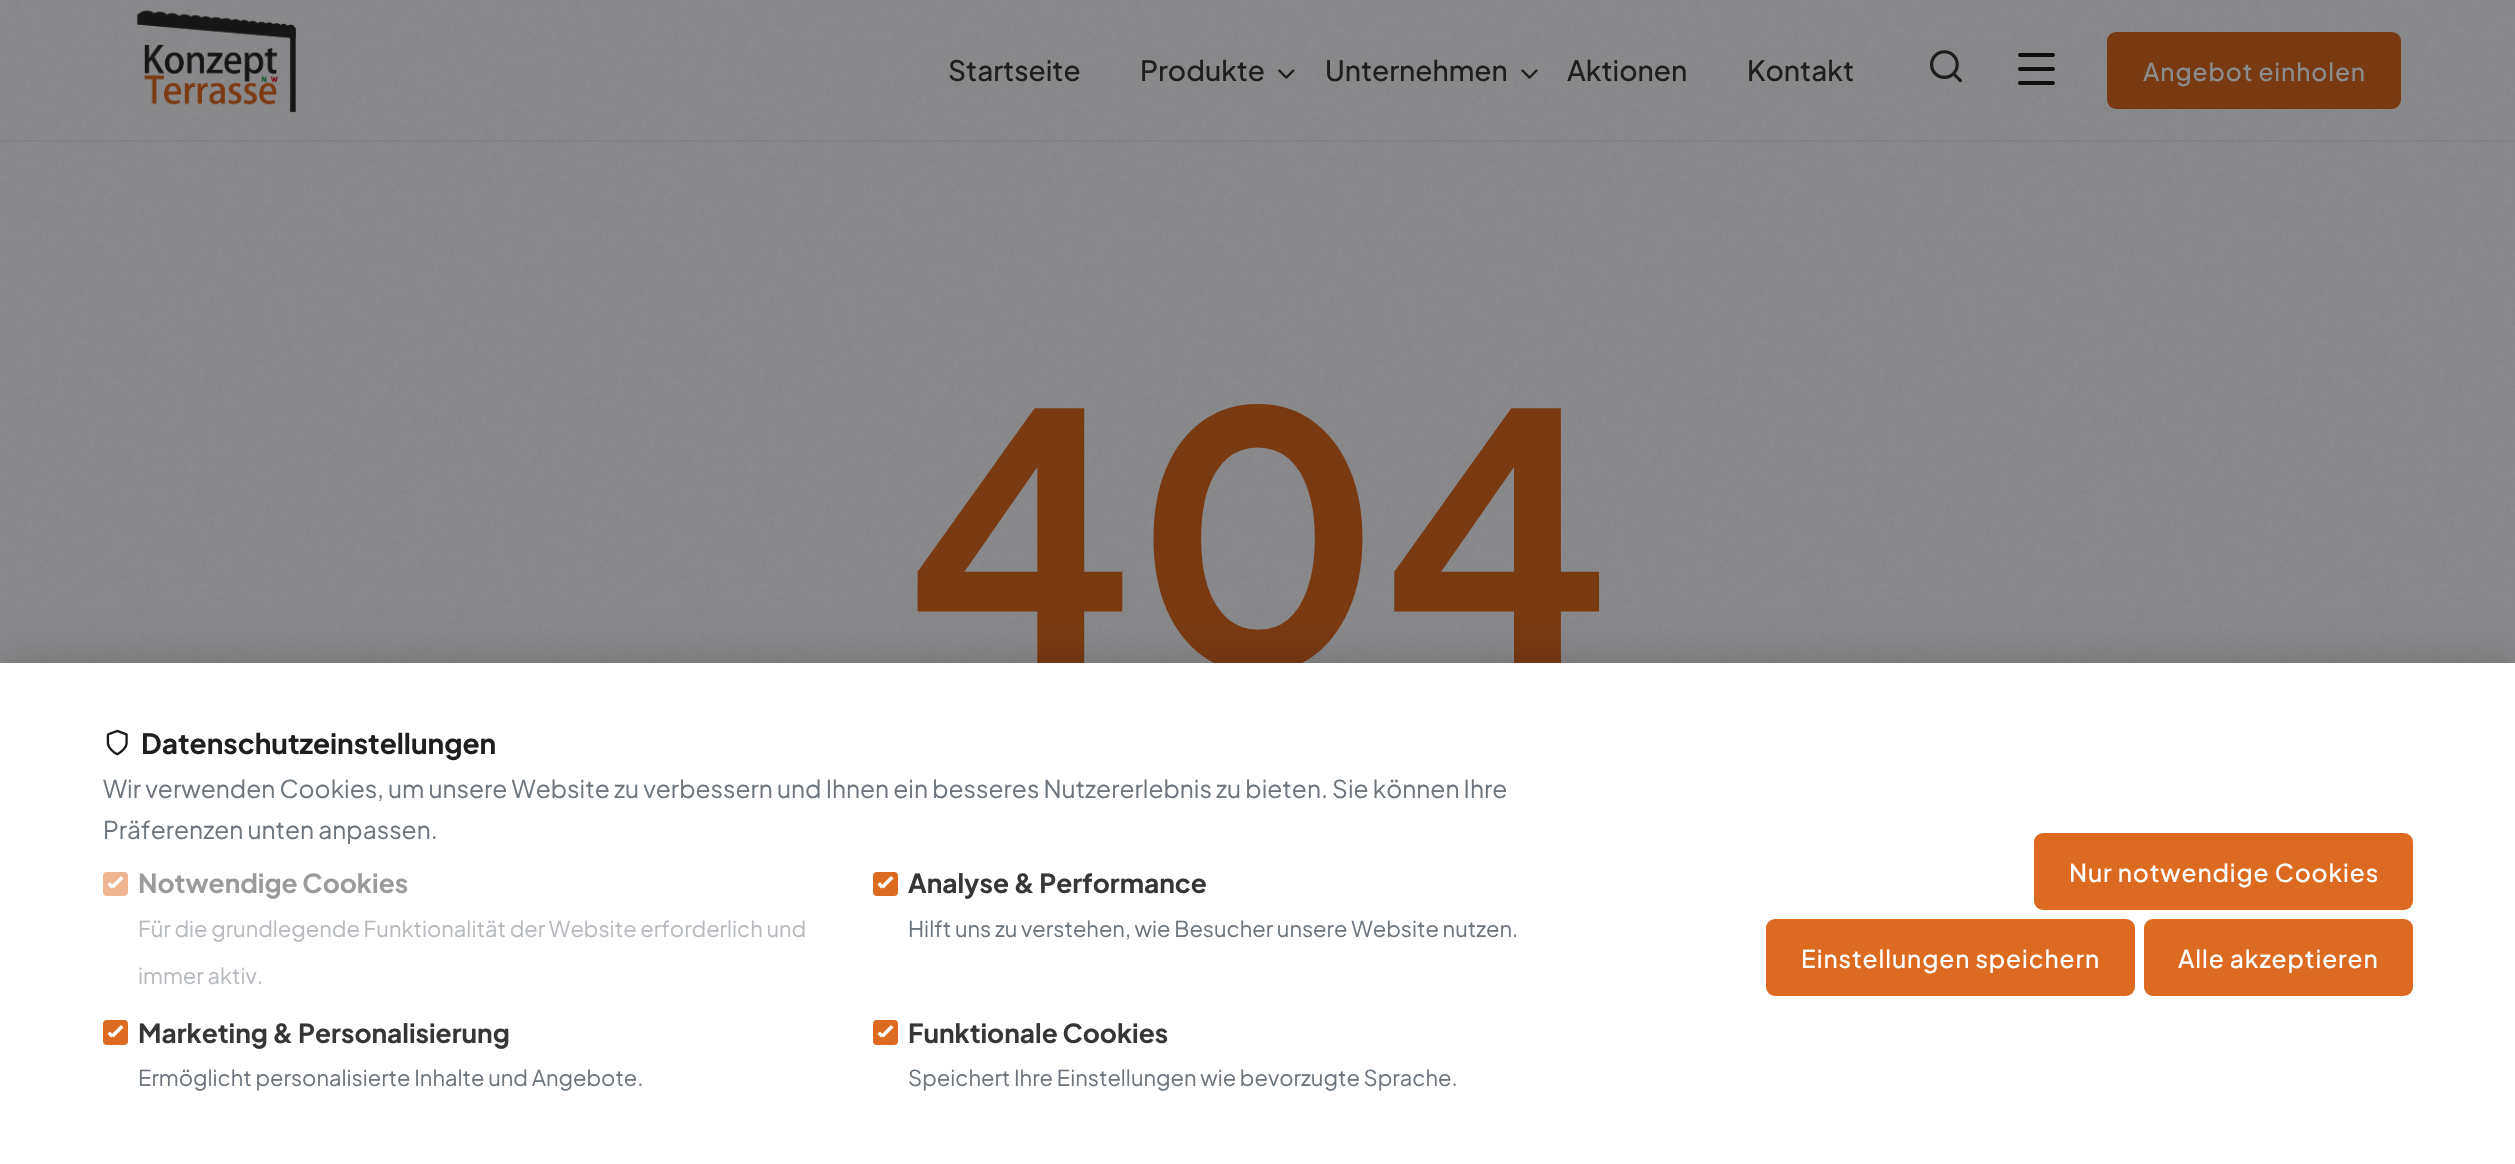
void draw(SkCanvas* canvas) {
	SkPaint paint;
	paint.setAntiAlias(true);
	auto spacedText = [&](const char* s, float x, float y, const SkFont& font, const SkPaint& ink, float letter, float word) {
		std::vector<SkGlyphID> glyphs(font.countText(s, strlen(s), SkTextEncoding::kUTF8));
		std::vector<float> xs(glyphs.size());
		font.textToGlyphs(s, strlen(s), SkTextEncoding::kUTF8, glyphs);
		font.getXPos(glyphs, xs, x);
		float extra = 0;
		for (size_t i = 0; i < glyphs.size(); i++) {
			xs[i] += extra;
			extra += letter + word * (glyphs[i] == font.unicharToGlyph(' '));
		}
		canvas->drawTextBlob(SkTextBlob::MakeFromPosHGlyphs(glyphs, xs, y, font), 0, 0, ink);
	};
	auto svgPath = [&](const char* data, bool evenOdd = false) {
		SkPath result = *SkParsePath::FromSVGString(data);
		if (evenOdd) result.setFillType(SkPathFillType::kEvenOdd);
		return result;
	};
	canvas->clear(0xff8a898b);
	canvas->drawImageRect(SkImages::DeferredFromEncodedData(SkData::MakeFromFileName("img1.png")), SkRect::MakeXYWH(0, 0, 2515, 663), SkSamplingOptions());
	paint.setColor(0x2956568c);
	canvas->drawRect(SkRect::MakeXYWH(0, 140, 2515, 2), paint);
	canvas->drawImageRect(SkImages::DeferredFromEncodedData(SkData::MakeFromFileName("img2.png")), SkRect::MakeXYWH(136, 10, 160, 103), SkSamplingOptions());
	SkFont f1(fontMgr->matchFamilyStyle("Plus Jakarta Sans", SkFontStyle(500, SkFontStyle::kNormal_Width, SkFontStyle::kUpright_Slant)), 28);
	f1.setSubpixel(true);
	paint.setColor(0xff1e1e1e);
	canvas->drawString("Startseite", 948, 81, f1, paint);
	canvas->drawString("Produkte", 1140, 81, f1, paint);
	canvas->drawImageRect(SkImages::DeferredFromEncodedData(SkData::MakeFromFileName("img3.png")), SkRect::MakeXYWH(1278, 69, 17, 10), SkSamplingOptions());
	canvas->drawString("Unternehmen", 1325, 81, f1, paint);
	canvas->drawImageRect(SkImages::DeferredFromEncodedData(SkData::MakeFromFileName("img4.png")), SkRect::MakeXYWH(1521, 69, 17, 10), SkSamplingOptions());
	canvas->drawString("Aktionen", 1567, 81, f1, paint);
	canvas->drawString("Kontakt", 1747, 81, f1, paint);
	canvas->drawImageRect(SkImages::DeferredFromEncodedData(SkData::MakeFromFileName("img5.png")), SkRect::MakeXYWH(1929, 50, 33, 33), SkSamplingOptions());
	paint.setColor(0xff0f0f0f);
	canvas->drawRoundRect(SkRect::MakeXYWH(2018, 53, 37, 4), 2, 2, paint);
	canvas->drawRoundRect(SkRect::MakeXYWH(2018, 67, 37, 4), 2, 2, paint);
	canvas->drawRoundRect(SkRect::MakeXYWH(2018, 81, 37, 4), 2, 2, paint);
	paint.setColor(0xff793a12);
	canvas->drawRoundRect(SkRect::MakeXYWH(2107, 32, 294, 77), 9, 9, paint);
	SkFont f2(fontMgr->matchFamilyStyle("Plus Jakarta Sans", SkFontStyle(500, SkFontStyle::kNormal_Width, SkFontStyle::kUpright_Slant)), 24.5);
	f2.setSubpixel(true);
	paint.setColor(0xff8c8c8c);
	spacedText("Angebot einholen", 2143, 81, f2, paint, 0.9, 0);
	SkFont f3(fontMgr->matchFamilyStyle("Plus Jakarta Sans", SkFontStyle::Bold()), 350);
	f3.setSubpixel(true);
	paint.setColor(0xff793a12);
	canvas->drawString("404", 905, 669, f3, paint);
	paint.setColor(0x1f000000);
	paint.setMaskFilter(SkMaskFilter::MakeBlur(kNormal_SkBlurStyle, 16));
	canvas->drawRect(SkRect::MakeXYWH(0, 656, 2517, 503), paint);
	paint.setMaskFilter(nullptr);
	paint.setColor(0xffffffff);
	canvas->drawRect(SkRect::MakeXYWH(0, 663, 2515, 501), paint);
	canvas->drawImageRect(SkImages::DeferredFromEncodedData(SkData::MakeFromFileName("img6.png")), SkRect::MakeXYWH(106, 729, 22, 27), SkSamplingOptions());
	SkFont f4(fontMgr->matchFamilyStyle("Plus Jakarta Sans", SkFontStyle::Bold()), 28);
	f4.setSubpixel(true);
	paint.setColor(0xff1e1e1e);
	canvas->drawString("Datenschutzeinstellungen", 141, 754, f4, paint);
	SkFont f5(fontMgr->matchFamilyStyle("Plus Jakarta Sans", SkFontStyle::Normal()), 24.5);
	f5.setSubpixel(true);
	paint.setColor(0xff6c757d);
	canvas->drawString("Wir verwenden Cookies, um unsere Website zu verbessern und Ihnen ein besseres Nutzererlebnis zu bieten. Sie können Ihre", 103, 798, f5, paint);
	canvas->drawString("Präferenzen unten anpassen.", 103, 839, f5, paint);
	paint.setColor(0xffeeb590);
	canvas->drawRoundRect(SkRect::MakeXYWH(105, 874, 21, 20), 2, 2, paint);
	paint.setStroke(true);
	paint.setStrokeWidth(4);
	canvas->drawRoundRect(SkRect::MakeXYWH(105, 874, 21, 20), 2, 2, paint);
	SkFont f6(fontMgr->matchFamilyStyle("Plus Jakarta Sans", SkFontStyle::Bold()), 26.25);
	f6.setSubpixel(true);
	paint.setStroke(false);
	paint.setColor(0xff9b9b9b);
	canvas->drawString("Notwendige Cookies", 138, 893, f6, paint);
	paint.setColor(0xffffffff);
	canvas->drawPath(svgPath("M111 886L121 876L123.5 878.5L113.5 888.5Z"), paint);
	canvas->drawPath(svgPath("M107.5 884.5L110 882L113.5 886L111 888.5Z"), paint);
	SkFont f7(fontMgr->matchFamilyStyle("Plus Jakarta Sans", SkFontStyle::Normal()), 21.9);
	f7.setSubpixel(true);
	paint.setColor(0xffb6babe);
	canvas->drawString("Für die grundlegende Funktionalität der Website erforderlich und", 138, 937, f7, paint);
	canvas->drawString("immer aktiv.", 138, 984, f7, paint);
	paint.setColor(0xffdc6a21);
	canvas->drawRoundRect(SkRect::MakeXYWH(875, 874, 21, 20), 2, 2, paint);
	paint.setStroke(true);
	canvas->drawRoundRect(SkRect::MakeXYWH(875, 874, 21, 20), 2, 2, paint);
	paint.setStroke(false);
	paint.setColor(0xff363636);
	canvas->drawString("Analyse & Performance", 908, 893, f6, paint);
	paint.setColor(0xffffffff);
	canvas->drawPath(svgPath("M881 886L891 876L893.5 878.5L883.5 888.5Z"), paint);
	canvas->drawPath(svgPath("M877.5 884.5L880 882L883.5 886L881 888.5Z"), paint);
	paint.setColor(0xff6c757d);
	canvas->drawString("Hilft uns zu verstehen, wie Besucher unsere Website nutzen.", 908, 937, f7, paint);
	paint.setColor(0xffdc6a21);
	canvas->drawRoundRect(SkRect::MakeXYWH(105, 1022, 21, 21), 2, 2, paint);
	paint.setStroke(true);
	canvas->drawRoundRect(SkRect::MakeXYWH(105, 1022, 21, 21), 2, 2, paint);
	paint.setStroke(false);
	paint.setColor(0xff363636);
	canvas->drawString("Marketing & Personalisierung", 138, 1043, f6, paint);
	paint.setColor(0xffffffff);
	canvas->drawPath(svgPath("M111 1035L121 1025L123.5 1027.5L113.5 1037.5Z"), paint);
	canvas->drawPath(svgPath("M107.5 1034L110 1031.5L113.5 1035L111 1037.5Z"), paint);
	paint.setColor(0xff6c757d);
	canvas->drawString("Ermöglicht personalisierte Inhalte und Angebote.", 138, 1086, f7, paint);
	paint.setColor(0xffdc6a21);
	canvas->drawRoundRect(SkRect::MakeXYWH(875, 1022, 21, 21), 2, 2, paint);
	paint.setStroke(true);
	canvas->drawRoundRect(SkRect::MakeXYWH(875, 1022, 21, 21), 2, 2, paint);
	paint.setStroke(false);
	paint.setColor(0xff363636);
	canvas->drawString("Funktionale Cookies", 908, 1043, f6, paint);
	paint.setColor(0xffffffff);
	canvas->drawPath(svgPath("M881 1035L891 1025L893.5 1027.5L883.5 1037.5Z"), paint);
	canvas->drawPath(svgPath("M877.5 1034L880 1031.5L883.5 1035L881 1037.5Z"), paint);
	paint.setColor(0xff6c757d);
	canvas->drawString("Speichert Ihre Einstellungen wie bevorzugte Sprache.", 908, 1086, f7, paint);
	paint.setColor(0xffdc6a21);
	canvas->drawRoundRect(SkRect::MakeXYWH(2034, 833, 379, 77), 9, 9, paint);
	paint.setColor(0xffffffff);
	spacedText("Nur notwendige Cookies", 2069, 882, f2, paint, 0.9, 0);
	paint.setColor(0xffdc6a21);
	canvas->drawRoundRect(SkRect::MakeXYWH(1766, 919, 369, 77), 9, 9, paint);
	paint.setColor(0xffffffff);
	spacedText("Einstellungen speichern", 1801, 968, f2, paint, 0.9, 0);
	paint.setColor(0xffdc6a21);
	canvas->drawRoundRect(SkRect::MakeXYWH(2144, 919, 269, 77), 9, 9, paint);
	paint.setColor(0xffffffff);
	spacedText("Alle akzeptieren", 2178, 968, f2, paint, 0.9, 0);
}
